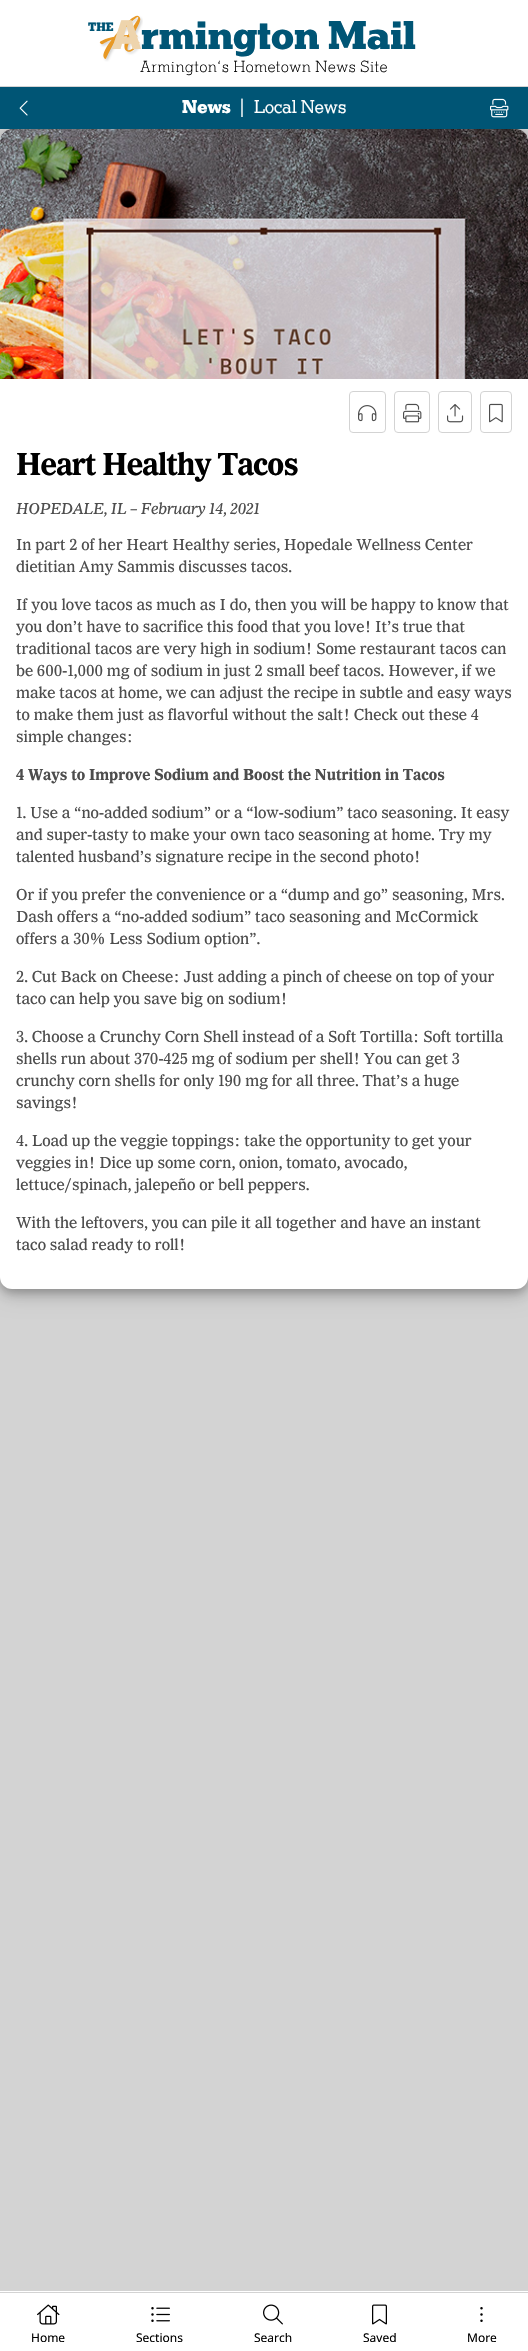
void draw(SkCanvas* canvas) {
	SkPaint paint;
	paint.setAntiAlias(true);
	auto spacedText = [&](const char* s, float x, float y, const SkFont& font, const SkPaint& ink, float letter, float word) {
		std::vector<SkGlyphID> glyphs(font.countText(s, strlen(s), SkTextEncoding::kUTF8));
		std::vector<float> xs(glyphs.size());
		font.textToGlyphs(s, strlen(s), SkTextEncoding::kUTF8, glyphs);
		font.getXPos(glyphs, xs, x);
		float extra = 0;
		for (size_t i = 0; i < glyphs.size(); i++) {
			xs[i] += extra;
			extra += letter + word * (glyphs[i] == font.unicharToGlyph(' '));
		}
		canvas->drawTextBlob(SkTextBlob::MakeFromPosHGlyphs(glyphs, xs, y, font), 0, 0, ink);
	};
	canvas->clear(0xffffffff);
	paint.setColor(0xffd3d3d3);
	canvas->drawRect(SkRect::MakeXYWH(0, 86, 528, 1), paint);
	canvas->drawImageRect(SkImages::DeferredFromEncodedData(SkData::MakeFromFileName("img1.png")), SkRect::MakeXYWH(99, 15, 44, 47), SkSamplingOptions());
	SkFont f1(fontMgr->matchFamilyStyle("Noto Sans", SkFontStyle(900, SkFontStyle::kNormal_Width, SkFontStyle::kUpright_Slant)), 40);
	f1.setSubpixel(true);
	paint.setColor(0xffeed4ac);
	canvas->drawString("A", 112, 49, f1, paint);
	SkFont f2(fontMgr->matchFamilyStyle("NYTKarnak", SkFontStyle::Bold()), 12);
	f2.setSubpixel(true);
	paint.setColor(0xff005575);
	canvas->drawString("THE", 88, 31, f2, paint);
	SkFont f3(fontMgr->matchFamilyStyle("NYTKarnak", SkFontStyle::Bold()), 40);
	f3.setSubpixel(true);
	canvas->drawString("rmington Mail", 141, 49, f3, paint);
	SkFont f4(fontMgr->matchFamilyStyle("NYTKarnak", SkFontStyle(300, SkFontStyle::kNormal_Width, SkFontStyle::kUpright_Slant)), 16);
	f4.setSubpixel(true);
	paint.setColor(0xff000000);
	spacedText("Armington‘s Hometown News Site", 140, 72, f4, paint, 0.5, 0);
	paint.setColor(0xffd3d3d3);
	canvas->drawRect(SkRect::MakeXYWH(0, 129, 528, 2162), paint);
	paint.setColor(0x30000000);
	paint.setMaskFilter(SkMaskFilter::MakeBlur(kNormal_SkBlurStyle, 10));
	canvas->drawRoundRect(SkRect::MakeXYWH(0, 135, 528, 1160), 12, 12, paint);
	paint.setMaskFilter(nullptr);
	paint.setColor(0x33000000);
	paint.setMaskFilter(SkMaskFilter::MakeBlur(kNormal_SkBlurStyle, 4));
	canvas->drawRoundRect(SkRect::MakeXYWH(0, 133, 528, 1160), 12, 12, paint);
	paint.setMaskFilter(nullptr);
	paint.setColor(0xff005575);
	canvas->drawRect(SkRect::MakeXYWH(0, 87, 528, 42), paint);
	canvas->drawImageRect(SkImages::DeferredFromEncodedData(SkData::MakeFromFileName("img2.png")), SkRect::MakeXYWH(19, 100, 9, 16), SkSamplingOptions());
	SkFont f5(fontMgr->matchFamilyStyle("NYTKarnak", SkFontStyle::Bold()), 18.5);
	f5.setSubpixel(true);
	paint.setColor(0xffffffff);
	canvas->drawString("News", 182, 113, f5, paint);
	SkFont f6(fontMgr->matchFamilyStyle("NYTKarnak", SkFontStyle(500, SkFontStyle::kNormal_Width, SkFontStyle::kUpright_Slant)), 18.5);
	f6.setSubpixel(true);
	canvas->drawString("|", 238, 113, f6, paint);
	canvas->drawString("Local News", 254, 113, f6, paint);
	canvas->drawImageRect(SkImages::DeferredFromEncodedData(SkData::MakeFromFileName("img3.png")), SkRect::MakeXYWH(490, 98, 19, 20), SkSamplingOptions());
	canvas->drawRoundRect(SkRect::MakeXYWH(0, 129, 528, 1160), 12, 12, paint);
	canvas->drawImageRect(SkImages::DeferredFromEncodedData(SkData::MakeFromFileName("img4.png")), SkRect::MakeXYWH(0, 129, 528, 250), SkSamplingOptions());
	paint.setStroke(true);
	paint.setStrokeWidth(1);
	paint.setColor(0xffd3d3d3);
	canvas->drawRoundRect(SkRect::MakeXYWH(349.5, 391.5, 36, 41), 3.5, 3.5, paint);
	canvas->drawImageRect(SkImages::DeferredFromEncodedData(SkData::MakeFromFileName("img5.png")), SkRect::MakeXYWH(358, 405, 19, 17), SkSamplingOptions());
	canvas->drawRoundRect(SkRect::MakeXYWH(394.5, 391.5, 35, 41), 3.5, 3.5, paint);
	canvas->drawImageRect(SkImages::DeferredFromEncodedData(SkData::MakeFromFileName("img6.png")), SkRect::MakeXYWH(403, 403, 19, 20), SkSamplingOptions());
	canvas->drawRoundRect(SkRect::MakeXYWH(438.5, 391.5, 33, 41), 3.5, 3.5, paint);
	canvas->drawImageRect(SkImages::DeferredFromEncodedData(SkData::MakeFromFileName("img7.png")), SkRect::MakeXYWH(447, 404, 17, 19), SkSamplingOptions());
	canvas->drawRoundRect(SkRect::MakeXYWH(480.5, 391.5, 31, 41), 3.5, 3.5, paint);
	canvas->drawImageRect(SkImages::DeferredFromEncodedData(SkData::MakeFromFileName("img8.png")), SkRect::MakeXYWH(489, 403, 14, 20), SkSamplingOptions());
	SkFont f7(fontMgr->matchFamilyStyle("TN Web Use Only", SkFontStyle(900, SkFontStyle::kNormal_Width, SkFontStyle::kUpright_Slant)), 32);
	f7.setSubpixel(true);
	paint.setStroke(false);
	paint.setColor(0xff000000);
	spacedText("Heart Healthy Tacos", 16, 475, f7, paint, -0.8, 0);
	SkFont f8(fontMgr->matchFamilyStyle("TN Web Use Only", SkFontStyle(900, SkFontStyle::kNormal_Width, SkFontStyle::kItalic_Slant)), 16);
	f8.setSubpixel(true);
	paint.setColor(0xff4d4d4d);
	spacedText("HOPEDALE, IL – February 14, 2021", 16, 514, f8, paint, -0.25, 0);
	SkFont f9(fontMgr->matchFamilyStyle("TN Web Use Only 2", SkFontStyle(900, SkFontStyle::kNormal_Width, SkFontStyle::kUpright_Slant)), 16);
	f9.setSubpixel(true);
	canvas->drawString("In part 2 of her Heart Healthy series, Hopedale Wellness Center", 16, 550, f9, paint);
	canvas->drawString("dietitian Amy Sammis discusses tacos.", 16, 572, f9, paint);
	canvas->drawString("If you love tacos as much as I do, then you will be happy to know that", 16, 610, f9, paint);
	canvas->drawString("you don’t have to sacrifice this food that you love! It’s true that", 16, 632, f9, paint);
	canvas->drawString("traditional tacos are very high in sodium! Some restaurant tacos can", 16, 654, f9, paint);
	canvas->drawString("be 600-1,000 mg of sodium in just 2 small beef tacos. However, if we", 16, 676, f9, paint);
	canvas->drawString("make tacos at home, we can adjust the recipe in subtle and easy ways", 16, 698, f9, paint);
	canvas->drawString("to make them just as flavorful without the salt! Check out these 4", 16, 720, f9, paint);
	canvas->drawString("simple changes:", 16, 742, f9, paint);
	SkFont f10(fontMgr->matchFamilyStyle("TN Web Use Only", SkFontStyle(900, SkFontStyle::kNormal_Width, SkFontStyle::kUpright_Slant)), 16);
	f10.setSubpixel(true);
	canvas->drawString("4 Ways to Improve Sodium and Boost the Nutrition in Tacos", 16, 780, f10, paint);
	canvas->drawString("1. Use a “no-added sodium” or a “low-sodium” taco seasoning. It easy", 16, 818, f9, paint);
	canvas->drawString("and super-tasty to make your own taco seasoning at home. Try my", 16, 840, f9, paint);
	canvas->drawString("talented husband’s signature recipe in the second photo!", 16, 862, f9, paint);
	canvas->drawString("Or if you prefer the convenience or a “dump and go” seasoning, Mrs.", 16, 900, f9, paint);
	canvas->drawString("Dash offers a “no-added sodium” taco seasoning and McCormick", 16, 922, f9, paint);
	canvas->drawString("offers a 30% Less Sodium option”.", 16, 944, f9, paint);
	canvas->drawString("2. Cut Back on Cheese: Just adding a pinch of cheese on top of your", 16, 982, f9, paint);
	canvas->drawString("taco can help you save big on sodium!", 16, 1004, f9, paint);
	canvas->drawString("3. Choose a Crunchy Corn Shell instead of a Soft Tortilla: Soft tortilla", 16, 1042, f9, paint);
	canvas->drawString("shells run about 370-425 mg of sodium per shell! You can get 3", 16, 1064, f9, paint);
	canvas->drawString("crunchy corn shells for only 190 mg for all three. That’s a huge", 16, 1086, f9, paint);
	canvas->drawString("savings!", 16, 1108, f9, paint);
	canvas->drawString("4. Load up the veggie toppings: take the opportunity to get your", 16, 1146, f9, paint);
	canvas->drawString("veggies in! Dice up some corn, onion, tomato, avocado,", 16, 1168, f9, paint);
	canvas->drawString("lettuce/spinach, jalepeño or bell peppers.", 16, 1190, f9, paint);
	canvas->drawString("With the leftovers, you can pile it all together and have an instant", 16, 1228, f9, paint);
	canvas->drawString("taco salad ready to roll!", 16, 1250, f9, paint);
	paint.setColor(0xffd3d3d3);
	canvas->drawRect(SkRect::MakeXYWH(0, 2292, 528, 1), paint);
	canvas->drawImageRect(SkImages::DeferredFromEncodedData(SkData::MakeFromFileName("img9.png")), SkRect::MakeXYWH(37, 2304, 23, 21), SkSamplingOptions());
	SkFont f11(fontMgr->matchFamilyStyle("Noto Sans", SkFontStyle::Normal()), 12);
	f11.setSubpixel(true);
	paint.setColor(0xff000000);
	canvas->drawString("Home", 31, 2342, f11, paint);
	canvas->drawImageRect(SkImages::DeferredFromEncodedData(SkData::MakeFromFileName("img10.png")), SkRect::MakeXYWH(151, 2307, 19, 15), SkSamplingOptions());
	canvas->drawString("Sections", 136, 2342, f11, paint);
	canvas->drawImageRect(SkImages::DeferredFromEncodedData(SkData::MakeFromFileName("img11.png")), SkRect::MakeXYWH(263, 2304, 20, 21), SkSamplingOptions());
	canvas->drawString("Search", 254, 2342, f11, paint);
	canvas->drawImageRect(SkImages::DeferredFromEncodedData(SkData::MakeFromFileName("img12.png")), SkRect::MakeXYWH(372, 2304, 15, 21), SkSamplingOptions());
	canvas->drawString("Saved", 363, 2342, f11, paint);
	canvas->drawImageRect(SkImages::DeferredFromEncodedData(SkData::MakeFromFileName("img13.png")), SkRect::MakeXYWH(480, 2307, 3, 15), SkSamplingOptions());
	canvas->drawString("More", 467, 2342, f11, paint);
}
